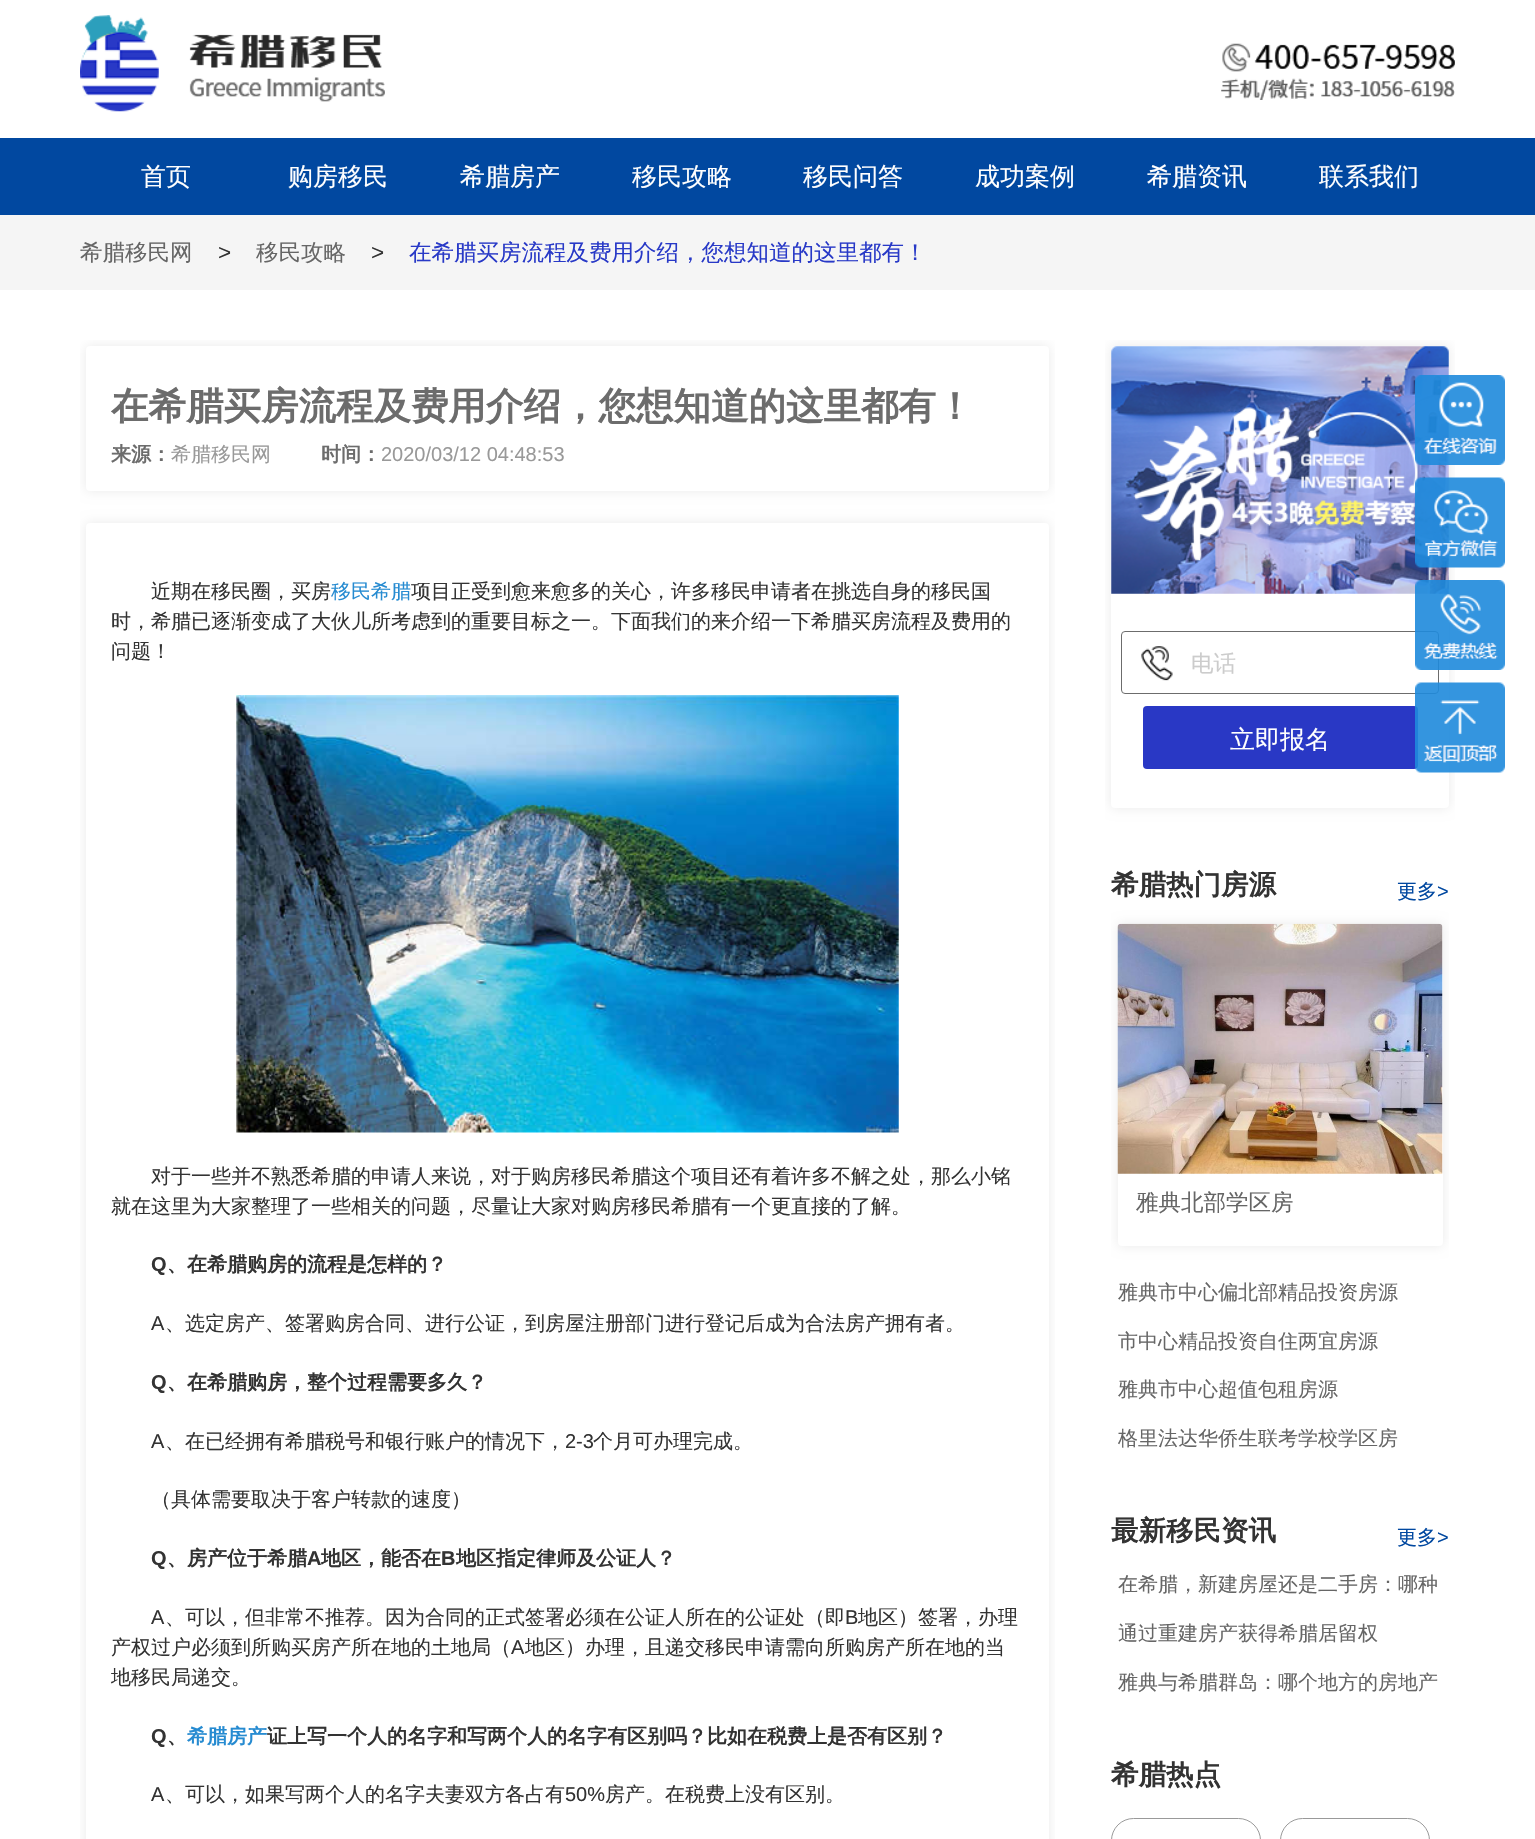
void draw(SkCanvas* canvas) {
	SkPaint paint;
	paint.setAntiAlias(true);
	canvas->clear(0xffffffff);
	canvas->drawImageRect(SkImages::DeferredFromEncodedData(SkData::MakeFromFileName("img1.png")), SkRect::MakeXYWH(80, 15, 305, 97), SkSamplingOptions());
	canvas->drawImageRect(SkImages::DeferredFromEncodedData(SkData::MakeFromFileName("img2.png")), SkRect::MakeXYWH(1221, 43, 234, 57), SkSamplingOptions());
	paint.setColor(0xff0148a0);
	canvas->drawRect(SkRect::MakeXYWH(0, 138, 1535, 77), paint);
	SkFont f1(fontMgr->matchFamilyStyle("WenQuanYi Zen Hei", SkFontStyle(500, SkFontStyle::kNormal_Width, SkFontStyle::kUpright_Slant)), 25);
	f1.setSubpixel(true);
	paint.setColor(0xffffffff);
	canvas->drawString("首页", 141, 185, f1, paint);
	canvas->drawString("购房移民", 288, 185, f1, paint);
	canvas->drawString("希腊房产", 460, 185, f1, paint);
	canvas->drawString("移民攻略", 632, 185, f1, paint);
	canvas->drawString("移民问答", 803, 185, f1, paint);
	canvas->drawString("成功案例", 975, 185, f1, paint);
	canvas->drawString("希腊资讯", 1147, 185, f1, paint);
	canvas->drawString("联系我们", 1319, 185, f1, paint);
	paint.setColor(0xfff5f5f5);
	canvas->drawRect(SkRect::MakeXYWH(0, 215, 1535, 75), paint);
	SkFont f2(fontMgr->matchFamilyStyle("WenQuanYi Zen Hei", SkFontStyle(500, SkFontStyle::kNormal_Width, SkFontStyle::kUpright_Slant)), 22.5);
	f2.setSubpixel(true);
	paint.setColor(0xff666666);
	canvas->drawString("希腊移民网", 80, 260, f2, paint);
	SkFont f3(fontMgr->matchFamilyStyle("Liberation Sans", SkFontStyle::Normal()), 22.5);
	f3.setSubpixel(true);
	paint.setColor(0xff333333);
	canvas->drawString(">", 218, 260, f3, paint);
	paint.setColor(0xff666666);
	canvas->drawString("移民攻略", 256, 260, f2, paint);
	paint.setColor(0xff333333);
	canvas->drawString(">", 371, 260, f3, paint);
	paint.setColor(0xff2839c7);
	canvas->drawString("在希腊买房流程及费用介绍，您想知道的这里都有！", 409, 260, f2, paint);
	canvas->save();
	canvas->clipRect(SkRect::MakeXYWH(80, 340, 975, 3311));
	paint.setColor(0xffeaeaea);
	paint.setMaskFilter(SkMaskFilter::MakeBlur(kNormal_SkBlurStyle, 6));
	canvas->drawRoundRect(SkRect::MakeXYWH(86, 346, 963, 145), 4, 4, paint);
	paint.setMaskFilter(nullptr);
	canvas->restore();
	paint.setColor(0xffffffff);
	canvas->drawRoundRect(SkRect::MakeXYWH(86, 346, 963, 145), 4, 4, paint);
	SkFont f4(fontMgr->matchFamilyStyle("WenQuanYi Zen Hei", SkFontStyle::Bold()), 37.5);
	f4.setSubpixel(true);
	paint.setColor(0xff6c6c6c);
	canvas->drawString("在希腊买房流程及费用介绍，您想知道的这里都有！", 111, 419, f4, paint);
	SkFont f5(fontMgr->matchFamilyStyle("WenQuanYi Zen Hei", SkFontStyle::Bold()), 20);
	f5.setSubpixel(true);
	canvas->drawString("来源：", 111, 461, f5, paint);
	SkFont f6(fontMgr->matchFamilyStyle("WenQuanYi Zen Hei", SkFontStyle(500, SkFontStyle::kNormal_Width, SkFontStyle::kUpright_Slant)), 20);
	f6.setSubpixel(true);
	paint.setColor(0xff999999);
	canvas->drawString("希腊移民网", 171, 461, f6, paint);
	paint.setColor(0xff6c6c6c);
	canvas->drawString("时间：", 321, 461, f5, paint);
	SkFont f7(fontMgr->matchFamilyStyle("Liberation Sans", SkFontStyle::Normal()), 20);
	f7.setSubpixel(true);
	paint.setColor(0xff999999);
	canvas->drawString("2020/03/12 04:48:53", 381, 461, f7, paint);
	canvas->save();
	canvas->clipRect(SkRect::MakeXYWH(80, 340, 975, 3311));
	paint.setColor(0xffeaeaea);
	paint.setMaskFilter(SkMaskFilter::MakeBlur(kNormal_SkBlurStyle, 6));
	canvas->drawRoundRect(SkRect::MakeXYWH(86, 523, 963, 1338), 4, 4, paint);
	paint.setMaskFilter(nullptr);
	canvas->restore();
	paint.setColor(0xffffffff);
	canvas->drawRoundRect(SkRect::MakeXYWH(86, 523, 963, 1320), 4, 4, paint);
	paint.setColor(0xff333333);
	canvas->drawString("近期在移民圈，买房", 151, 598, f6, paint);
	paint.setColor(0xff268bd1);
	canvas->drawString("移民希腊", 331, 598, f6, paint);
	paint.setColor(0xff333333);
	canvas->drawString("项目正受到愈来愈多的关心，许多移民申请者在挑选自身的移民国", 411, 598, f6, paint);
	canvas->drawString("时，希腊已逐渐变成了大伙儿所考虑到的重要目标之一。下面我们的来介绍一下希腊买房流程及费用的", 111, 628, f6, paint);
	canvas->drawString("问题！", 111, 658, f6, paint);
	canvas->drawImageRect(SkImages::DeferredFromEncodedData(SkData::MakeFromFileName("img3.png")), SkRect::MakeXYWH(236, 695, 663, 438), SkSamplingOptions());
	canvas->drawString("对于一些并不熟悉希腊的申请人来说，对于购房移民希腊这个项目还有着许多不解之处，那么小铭", 151, 1183, f6, paint);
	canvas->drawString("就在这里为大家整理了一些相关的问题，尽量让大家对购房移民希腊有一个更直接的了解。", 111, 1213, f6, paint);
	SkFont f8(fontMgr->matchFamilyStyle("Liberation Sans", SkFontStyle::Bold()), 20);
	f8.setSubpixel(true);
	canvas->drawString("Q", 151, 1271, f8, paint);
	canvas->drawString("、在希腊购房的流程是怎样的？", 167, 1271, f5, paint);
	canvas->drawString("A", 151, 1330, f7, paint);
	canvas->drawString("、选定房产、签署购房合同、进行公证，到房屋注册部门进行登记后成为合法房产拥有者。", 165, 1330, f6, paint);
	canvas->drawString("Q", 151, 1389, f8, paint);
	canvas->drawString("、在希腊购房，整个过程需要多久？", 167, 1389, f5, paint);
	canvas->drawString("A", 151, 1448, f7, paint);
	canvas->drawString("、在已经拥有希腊税号和银行账户的情况下，", 165, 1448, f6, paint);
	canvas->drawString("2-3", 565, 1448, f7, paint);
	canvas->drawString("个月可办理完成。", 593, 1448, f6, paint);
	canvas->drawString("（具体需要取决于客户转款的速度）", 151, 1506, f6, paint);
	canvas->drawString("Q", 151, 1565, f8, paint);
	canvas->drawString("、房产位于希腊", 167, 1565, f5, paint);
	canvas->drawString("A", 307, 1565, f8, paint);
	canvas->drawString("地区，能否在", 321, 1565, f5, paint);
	canvas->drawString("B", 441, 1565, f8, paint);
	canvas->drawString("地区指定律师及公证人？", 456, 1565, f5, paint);
	canvas->drawString("A", 151, 1624, f7, paint);
	canvas->drawString("、可以，但非常不推荐。因为合同的正式签署必须在公证人所在的公证处（即", 165, 1624, f6, paint);
	canvas->drawString("B", 845, 1624, f7, paint);
	canvas->drawString("地区）签署，办理", 858, 1624, f6, paint);
	canvas->drawString("产权过户必须到所购买房产所在地的土地局（", 111, 1654, f6, paint);
	canvas->drawString("A", 511, 1654, f7, paint);
	canvas->drawString("地区）办理，且递交移民申请需向所购房产所在地的当", 525, 1654, f6, paint);
	canvas->drawString("地移民局递交。", 111, 1684, f6, paint);
	canvas->drawString("Q", 151, 1743, f8, paint);
	canvas->drawString("、", 167, 1743, f5, paint);
	paint.setColor(0xff268bd1);
	canvas->drawString("希腊房产", 187, 1743, f5, paint);
	paint.setColor(0xff333333);
	canvas->drawString("证上写一个人的名字和写两个人的名字有区别吗？比如在税费上是否有区别？", 267, 1743, f5, paint);
	canvas->drawString("A", 151, 1801, f7, paint);
	canvas->drawString("、可以，如果写两个人的名字夫妻双方各占有", 165, 1801, f6, paint);
	canvas->drawString("50%", 565, 1801, f7, paint);
	canvas->drawString("房产。在税费上没有区别。", 605, 1801, f6, paint);
	canvas->save();
	canvas->clipRect(SkRect::MakeXYWH(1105, 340, 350, 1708));
	paint.setColor(0xffeaeaea);
	paint.setMaskFilter(SkMaskFilter::MakeBlur(kNormal_SkBlurStyle, 6));
	canvas->drawRoundRect(SkRect::MakeXYWH(1111, 346, 338, 462), 4, 4, paint);
	paint.setMaskFilter(nullptr);
	canvas->restore();
	paint.setColor(0xffffffff);
	canvas->drawRoundRect(SkRect::MakeXYWH(1111, 346, 338, 462), 4, 4, paint);
	canvas->drawImageRect(SkImages::DeferredFromEncodedData(SkData::MakeFromFileName("img4.png")), SkRect::MakeXYWH(1111, 346, 338, 248), SkSamplingOptions());
	paint.setStroke(true);
	paint.setStrokeWidth(1);
	paint.setColor(0xff6c6c6c);
	canvas->drawRoundRect(SkRect::MakeXYWH(1121.5, 631.5, 317, 62), 3.5, 3.5, paint);
	canvas->drawImageRect(SkImages::DeferredFromEncodedData(SkData::MakeFromFileName("img5.png")), SkRect::MakeXYWH(1141, 646, 32, 35), SkSamplingOptions());
	paint.setStroke(false);
	paint.setColor(0xffcccccc);
	canvas->drawString("电话", 1191, 671, f2, paint);
	paint.setColor(0xff2938c5);
	canvas->drawRoundRect(SkRect::MakeXYWH(1143, 706, 275, 63), 4, 4, paint);
	paint.setColor(0xffffffff);
	canvas->drawString("立即报名", 1230, 748, f1, paint);
	SkFont f9(fontMgr->matchFamilyStyle("WenQuanYi Zen Hei", SkFontStyle::Bold()), 27.5);
	f9.setSubpixel(true);
	paint.setColor(0xff333333);
	canvas->drawString("希腊热门房源", 1111, 894, f9, paint);
	paint.setColor(0xff0148a0);
	canvas->drawString("更多", 1397, 898, f6, paint);
	canvas->drawString(">", 1437, 898, f7, paint);
	canvas->save();
	canvas->clipRect(SkRect::MakeXYWH(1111, 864, 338, 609));
	paint.setColor(0xffeaeaea);
	paint.setMaskFilter(SkMaskFilter::MakeBlur(kNormal_SkBlurStyle, 6));
	canvas->drawRoundRect(SkRect::MakeXYWH(1118, 924, 325, 322), 4, 4, paint);
	paint.setMaskFilter(nullptr);
	canvas->restore();
	paint.setColor(0xffffffff);
	canvas->drawRoundRect(SkRect::MakeXYWH(1118, 924, 325, 322), 4, 4, paint);
	canvas->drawImageRect(SkImages::DeferredFromEncodedData(SkData::MakeFromFileName("img6.png")), SkRect::MakeXYWH(1117, 923, 326, 251), SkSamplingOptions());
	paint.setColor(0xff666666);
	canvas->drawString("雅典北部学区房", 1136, 1210, f2, paint);
	canvas->drawString("雅典市中心偏北部精品投资房源", 1118, 1299, f6, paint);
	canvas->drawString("市中心精品投资自住两宜房源", 1118, 1348, f6, paint);
	canvas->drawString("雅典市中心超值包租房源", 1118, 1396, f6, paint);
	canvas->drawString("格里法达华侨生联考学校学区房", 1118, 1445, f6, paint);
	paint.setColor(0xff333333);
	canvas->drawString("最新移民资讯", 1111, 1540, f9, paint);
	paint.setColor(0xff0148a0);
	canvas->drawString("更多", 1397, 1544, f6, paint);
	canvas->drawString(">", 1437, 1544, f7, paint);
	paint.setColor(0xff666666);
	canvas->drawString("在希腊，新建房屋还是二手房：哪种", 1118, 1591, f6, paint);
	canvas->drawString("通过重建房产获得希腊居留权", 1118, 1640, f6, paint);
	canvas->drawString("雅典与希腊群岛：哪个地方的房地产", 1118, 1689, f6, paint);
	paint.setColor(0xff333333);
	canvas->drawString("希腊热点", 1111, 1784, f9, paint);
	paint.setStroke(true);
	paint.setColor(0xff999999);
	canvas->drawRoundRect(SkRect::MakeXYWH(1111.5, 1818.5, 149, 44), 22, 22, paint);
	canvas->drawRoundRect(SkRect::MakeXYWH(1280.5, 1818.5, 149, 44), 22, 22, paint);
	canvas->drawImageRect(SkImages::DeferredFromEncodedData(SkData::MakeFromFileName("img7.png")), SkRect::MakeXYWH(1415, 375, 90, 90), SkSamplingOptions());
	canvas->drawImageRect(SkImages::DeferredFromEncodedData(SkData::MakeFromFileName("img8.png")), SkRect::MakeXYWH(1415, 477, 90, 91), SkSamplingOptions());
	canvas->drawImageRect(SkImages::DeferredFromEncodedData(SkData::MakeFromFileName("img9.png")), SkRect::MakeXYWH(1415, 580, 90, 90), SkSamplingOptions());
	canvas->drawImageRect(SkImages::DeferredFromEncodedData(SkData::MakeFromFileName("img10.png")), SkRect::MakeXYWH(1415, 682, 90, 91), SkSamplingOptions());
}
